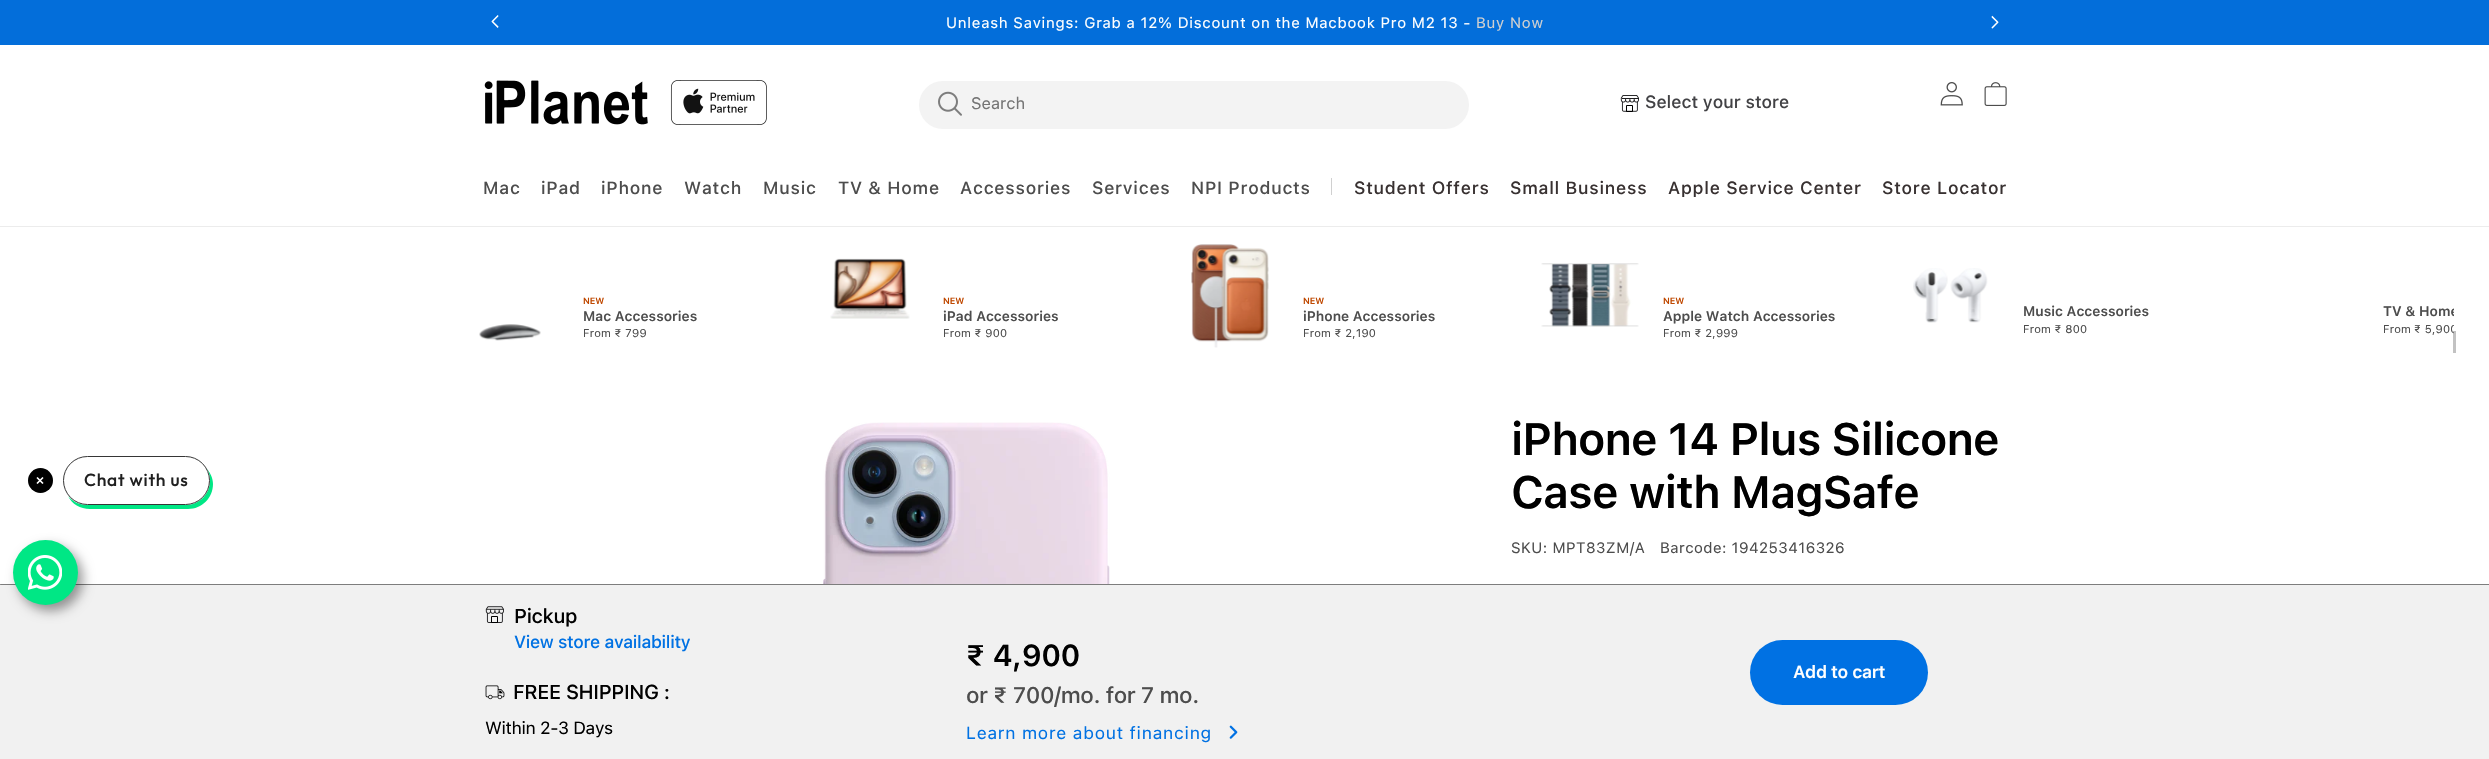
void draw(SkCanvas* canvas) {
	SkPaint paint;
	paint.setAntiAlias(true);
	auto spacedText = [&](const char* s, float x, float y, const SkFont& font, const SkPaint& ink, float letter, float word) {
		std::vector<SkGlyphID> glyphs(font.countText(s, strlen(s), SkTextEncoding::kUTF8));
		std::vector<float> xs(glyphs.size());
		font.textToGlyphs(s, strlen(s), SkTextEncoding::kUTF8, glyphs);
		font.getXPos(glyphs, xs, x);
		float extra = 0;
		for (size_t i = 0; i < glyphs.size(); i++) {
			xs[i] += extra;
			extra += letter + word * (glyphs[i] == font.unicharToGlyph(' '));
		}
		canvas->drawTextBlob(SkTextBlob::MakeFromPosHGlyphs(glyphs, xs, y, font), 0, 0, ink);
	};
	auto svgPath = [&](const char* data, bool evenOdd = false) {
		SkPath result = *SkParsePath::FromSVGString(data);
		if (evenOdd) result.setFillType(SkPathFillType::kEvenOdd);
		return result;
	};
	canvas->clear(0xffffffff);
	paint.setColor(0xff036eda);
	canvas->drawRect(SkRect::MakeXYWH(0, 0, 2489, 45), paint);
	canvas->drawImageRect(SkImages::DeferredFromEncodedData(SkData::MakeFromFileName("img1.png")), SkRect::MakeXYWH(491, 15, 8, 13), SkSamplingOptions());
	SkFont f1(fontMgr->matchFamilyStyle("SF Pro Text", SkFontStyle::Normal()), 15);
	f1.setSubpixel(true);
	paint.setColor(0xffffffff);
	spacedText("Unleash Savings: Grab a 12% Discount on the Macbook Pro M2 13 -", 946, 28, f1, paint, 0.75, 0);
	paint.setColor(0xffd0d0d0);
	spacedText("Buy Now", 1476, 28, f1, paint, 0.75, 0);
	canvas->drawImageRect(SkImages::DeferredFromEncodedData(SkData::MakeFromFileName("img2.png")), SkRect::MakeXYWH(1991, 15, 8, 14), SkSamplingOptions());
	paint.setColor(0xffececec);
	canvas->drawRect(SkRect::MakeXYWH(0, 226, 2489, 1), paint);
	canvas->drawImageRect(SkImages::DeferredFromEncodedData(SkData::MakeFromFileName("img3.png")), SkRect::MakeXYWH(484, 80, 164, 45), SkSamplingOptions());
	canvas->drawImageRect(SkImages::DeferredFromEncodedData(SkData::MakeFromFileName("img4.png")), SkRect::MakeXYWH(670, 80, 97, 45), SkSamplingOptions());
	paint.setColor(0xfff3f3f3);
	canvas->drawRoundRect(SkRect::MakeXYWH(919, 81, 550, 48), 24, 24, paint);
	canvas->drawImageRect(SkImages::DeferredFromEncodedData(SkData::MakeFromFileName("img5.png")), SkRect::MakeXYWH(938, 91, 24, 25), SkSamplingOptions());
	SkFont f2(fontMgr->matchFamilyStyle("SF Pro Text", SkFontStyle::Normal()), 16.5);
	f2.setSubpixel(true);
	paint.setColor(0xff757575);
	canvas->drawString("Search", 971, 109, f2, paint);
	canvas->drawImageRect(SkImages::DeferredFromEncodedData(SkData::MakeFromFileName("img6.png")), SkRect::MakeXYWH(1620, 95, 19, 17), SkSamplingOptions());
	SkFont f3(fontMgr->matchFamilyStyle("SF Pro Text", SkFontStyle(500, SkFontStyle::kNormal_Width, SkFontStyle::kUpright_Slant)), 17.5);
	f3.setSubpixel(true);
	paint.setColor(0xff424245);
	canvas->drawString("Select your store", 1645, 108, f3, paint);
	canvas->drawImageRect(SkImages::DeferredFromEncodedData(SkData::MakeFromFileName("img7.png")), SkRect::MakeXYWH(1940, 82, 23, 24), SkSamplingOptions());
	canvas->drawImageRect(SkImages::DeferredFromEncodedData(SkData::MakeFromFileName("img8.png")), SkRect::MakeXYWH(1984, 82, 23, 24), SkSamplingOptions());
	paint.setColor(0xff4d4d4d);
	spacedText("Mac", 483, 194, f3, paint, 0.75, 0);
	spacedText("iPad", 541, 194, f3, paint, 0.75, 0);
	spacedText("iPhone", 601, 194, f3, paint, 0.75, 0);
	spacedText("Watch", 684, 194, f3, paint, 0.75, 0);
	spacedText("Music", 763, 194, f3, paint, 0.75, 0);
	spacedText("TV & Home", 838, 194, f3, paint, 0.75, 0);
	spacedText("Accessories", 960, 194, f3, paint, 0.75, 0);
	spacedText("Services", 1092, 194, f3, paint, 0.75, 0);
	spacedText("NPI Products", 1191, 194, f3, paint, 0.75, 0);
	paint.setColor(0xffd0d0d0);
	canvas->drawRect(SkRect::MakeXYWH(1331, 178, 1, 17), paint);
	paint.setColor(0xff383131);
	spacedText("Student Offers", 1354, 194, f3, paint, 0.75, 0);
	spacedText("Small Business", 1510, 194, f3, paint, 0.75, 0);
	spacedText("Apple Service Center", 1668, 194, f3, paint, 0.75, 0);
	spacedText("Store Locator", 1882, 194, f3, paint, 0.75, 0);
	canvas->drawImageRect(SkImages::DeferredFromEncodedData(SkData::MakeFromFileName("img9.png")), SkRect::MakeXYWH(479, 324, 62, 17), SkSamplingOptions());
	SkFont f4(fontMgr->matchFamilyStyle("SF Pro Text", SkFontStyle(600, SkFontStyle::kNormal_Width, SkFontStyle::kUpright_Slant)), 9);
	f4.setSubpixel(true);
	paint.setColor(0xffbf4800);
	canvas->drawString("NEW", 583, 304, f4, paint);
	SkFont f5(fontMgr->matchFamilyStyle("SF Pro Text", SkFontStyle(600, SkFontStyle::kNormal_Width, SkFontStyle::kUpright_Slant)), 13.75);
	f5.setSubpixel(true);
	paint.setColor(0xff4d4d4d);
	canvas->drawString("Mac Accessories", 583, 321, f5, paint);
	SkFont f6(fontMgr->matchFamilyStyle("SF Pro Text", SkFontStyle::Normal()), 11.25);
	f6.setSubpixel(true);
	spacedText("From ₹ 799", 583, 337, f6, paint, 0.25, 0);
	canvas->drawImageRect(SkImages::DeferredFromEncodedData(SkData::MakeFromFileName("img10.png")), SkRect::MakeXYWH(830, 258, 80, 61), SkSamplingOptions());
	paint.setColor(0xffbf4800);
	canvas->drawString("NEW", 943, 304, f4, paint);
	paint.setColor(0xff4d4d4d);
	canvas->drawString("iPad Accessories", 943, 321, f5, paint);
	spacedText("From ₹ 900", 943, 337, f6, paint, 0.25, 0);
	canvas->drawImageRect(SkImages::DeferredFromEncodedData(SkData::MakeFromFileName("img11.png")), SkRect::MakeXYWH(1191, 244, 78, 104), SkSamplingOptions());
	paint.setColor(0xffbf4800);
	canvas->drawString("NEW", 1303, 304, f4, paint);
	paint.setColor(0xff4d4d4d);
	canvas->drawString("iPhone Accessories", 1303, 321, f5, paint);
	spacedText("From ₹ 2,190", 1303, 337, f6, paint, 0.25, 0);
	canvas->drawImageRect(SkImages::DeferredFromEncodedData(SkData::MakeFromFileName("img12.png")), SkRect::MakeXYWH(1541, 263, 98, 64), SkSamplingOptions());
	paint.setColor(0xffbf4800);
	canvas->drawString("NEW", 1663, 304, f4, paint);
	paint.setColor(0xff4d4d4d);
	canvas->drawString("Apple Watch Accessories", 1663, 321, f5, paint);
	spacedText("From ₹ 2,999", 1663, 337, f6, paint, 0.25, 0);
	canvas->drawImageRect(SkImages::DeferredFromEncodedData(SkData::MakeFromFileName("img13.png")), SkRect::MakeXYWH(1913, 268, 75, 55), SkSamplingOptions());
	canvas->drawString("Music Accessories", 2023, 316, f5, paint);
	spacedText("From ₹ 800", 2023, 333, f6, paint, 0.25, 0);
	canvas->save();
	canvas->clipRect(SkRect::MakeXYWH(2383, 304, 71, 16));
	canvas->drawString("TV & Home", 2383, 316, f5, paint);
	canvas->restore();
	spacedText("From", 2383, 333, f6, paint, 0.25, 0);
	canvas->save();
	canvas->clipRect(SkRect::MakeXYWH(453, 243, 2001, 105));
	spacedText("₹ 5,900", 2414, 333, f6, paint, 0.25, 0);
	canvas->restore();
	paint.setColor(0x787d7d7d);
	canvas->drawRect(SkRect::MakeXYWH(2453, 331, 3, 22), paint);
	paint.setColor(0xff000000);
	canvas->drawCircle(40.5, 480.5, 12.5, paint);
	paint.setStroke(true);
	paint.setStrokeWidth(1.7);
	paint.setColor(0xffffffff);
	canvas->drawPath(svgPath("M37 477.5L43 483.5M37 483.5L43 477.5"), paint);
	paint.setStroke(false);
	paint.setColor(0xff00e785);
	canvas->drawPath(svgPath("M68 496C72 504 80 509 90 509H188C202 509 213 498 213 484C213 478 210 472 206 468C209 471 210 476 210 481C210 494 199 505 186 505H87C79 505 72 501 68 496Z"), paint);
	paint.setColor(0xffffffff);
	canvas->drawRoundRect(SkRect::MakeXYWH(63.5, 456.5, 146, 48), 24, 24, paint);
	paint.setStroke(true);
	paint.setStrokeWidth(1);
	paint.setColor(0xff363636);
	canvas->drawRoundRect(SkRect::MakeXYWH(63.5, 456.5, 146, 48), 24, 24, paint);
	SkFont f7(fontMgr->matchFamilyStyle("Outfit", SkFontStyle(500, SkFontStyle::kNormal_Width, SkFontStyle::kUpright_Slant)), 17.5);
	f7.setSubpixel(true);
	paint.setStroke(false);
	paint.setColor(0xff202020);
	spacedText("Chat with us", 84, 486, f7, paint, 0.75, 0);
	paint.setColor(0xfff1f1f1);
	canvas->drawRect(SkRect::MakeXYWH(0, 584, 2489, 175), paint);
	paint.setColor(0xff7d7d7d);
	canvas->drawRoundRect(SkRect::MakeXYWH(0, 584, 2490, 1), 0.5, 0.5, paint);
	paint.setColor(0x66000000);
	paint.setMaskFilter(SkMaskFilter::MakeBlur(kNormal_SkBlurStyle, 6));
	canvas->drawRoundRect(SkRect::MakeXYWH(18, 546, 65, 65), 32.5, 32.5, paint);
	paint.setMaskFilter(nullptr);
	paint.setColor(0xff00e785);
	canvas->drawCircle(45.5, 572.5, 32.5, paint);
	canvas->drawImageRect(SkImages::DeferredFromEncodedData(SkData::MakeFromFileName("img14.png")), SkRect::MakeXYWH(28, 555, 34, 35), SkSamplingOptions());
	canvas->drawImageRect(SkImages::DeferredFromEncodedData(SkData::MakeFromFileName("img15.png")), SkRect::MakeXYWH(823, 422, 287, 162), SkSamplingOptions());
	SkFont f8(fontMgr->matchFamilyStyle("SF Pro Text", SkFontStyle(600, SkFontStyle::kNormal_Width, SkFontStyle::kUpright_Slant)), 45);
	f8.setSubpixel(true);
	paint.setColor(0xff000000);
	spacedText("iPhone 14 Plus Silicone", 1511, 455, f8, paint, -0.9, 0);
	spacedText("Case with MagSafe", 1511, 508, f8, paint, -0.9, 0);
	paint.setColor(0xff4d4d4d);
	spacedText("SKU: MPT83ZM/A", 1511, 553, f1, paint, 0.45, 0);
	spacedText("Barcode: 194253416326", 1660, 553, f1, paint, 0.45, 0);
	canvas->drawImageRect(SkImages::DeferredFromEncodedData(SkData::MakeFromFileName("img16.png")), SkRect::MakeXYWH(485, 606, 19, 17), SkSamplingOptions());
	SkFont f9(fontMgr->matchFamilyStyle("SF Pro Text", SkFontStyle(500, SkFontStyle::kNormal_Width, SkFontStyle::kUpright_Slant)), 20);
	f9.setSubpixel(true);
	paint.setColor(0xff000000);
	spacedText("Pickup", 514, 623, f9, paint, -0.35, 0);
	paint.setColor(0xff0071e3);
	spacedText("View store availability", 514, 648, f3, paint, -0.35, 0);
	canvas->drawImageRect(SkImages::DeferredFromEncodedData(SkData::MakeFromFileName("img17.png")), SkRect::MakeXYWH(485, 685, 20, 15), SkSamplingOptions());
	paint.setColor(0xff000000);
	spacedText("FREE SHIPPING :", 513, 699, f9, paint, -0.35, 0);
	SkFont f10(fontMgr->matchFamilyStyle("SF Pro Text", SkFontStyle::Normal()), 17.5);
	f10.setSubpixel(true);
	spacedText("Within 2-3 Days", 485, 734, f10, paint, -0.35, 0);
	SkFont f11(fontMgr->matchFamilyStyle("SF Pro Text", SkFontStyle(600, SkFontStyle::kNormal_Width, SkFontStyle::kUpright_Slant)), 30);
	f11.setSubpixel(true);
	spacedText("₹ 4,900", 966, 666, f11, paint, -0.5, 0);
	SkFont f12(fontMgr->matchFamilyStyle("SF Pro Text", SkFontStyle(500, SkFontStyle::kNormal_Width, SkFontStyle::kUpright_Slant)), 22.5);
	f12.setSubpixel(true);
	paint.setColor(0xff4d4d4d);
	spacedText("or ₹ 700/mo. for 7 mo.", 966, 703, f12, paint, -0.45, 0);
	paint.setColor(0xff0071e3);
	spacedText("Learn more about financing", 966, 739, f10, paint, 0.75, 0);
	canvas->drawImageRect(SkImages::DeferredFromEncodedData(SkData::MakeFromFileName("img18.png")), SkRect::MakeXYWH(1229, 725, 9, 14), SkSamplingOptions());
	canvas->drawRoundRect(SkRect::MakeXYWH(1750, 640, 178, 65), 32.5, 32.5, paint);
	SkFont f13(fontMgr->matchFamilyStyle("SF Pro Text", SkFontStyle(600, SkFontStyle::kNormal_Width, SkFontStyle::kUpright_Slant)), 17.5);
	f13.setSubpixel(true);
	paint.setColor(0xffffffff);
	spacedText("Add to cart", 1793, 678, f13, paint, -0.35, 0);
}
